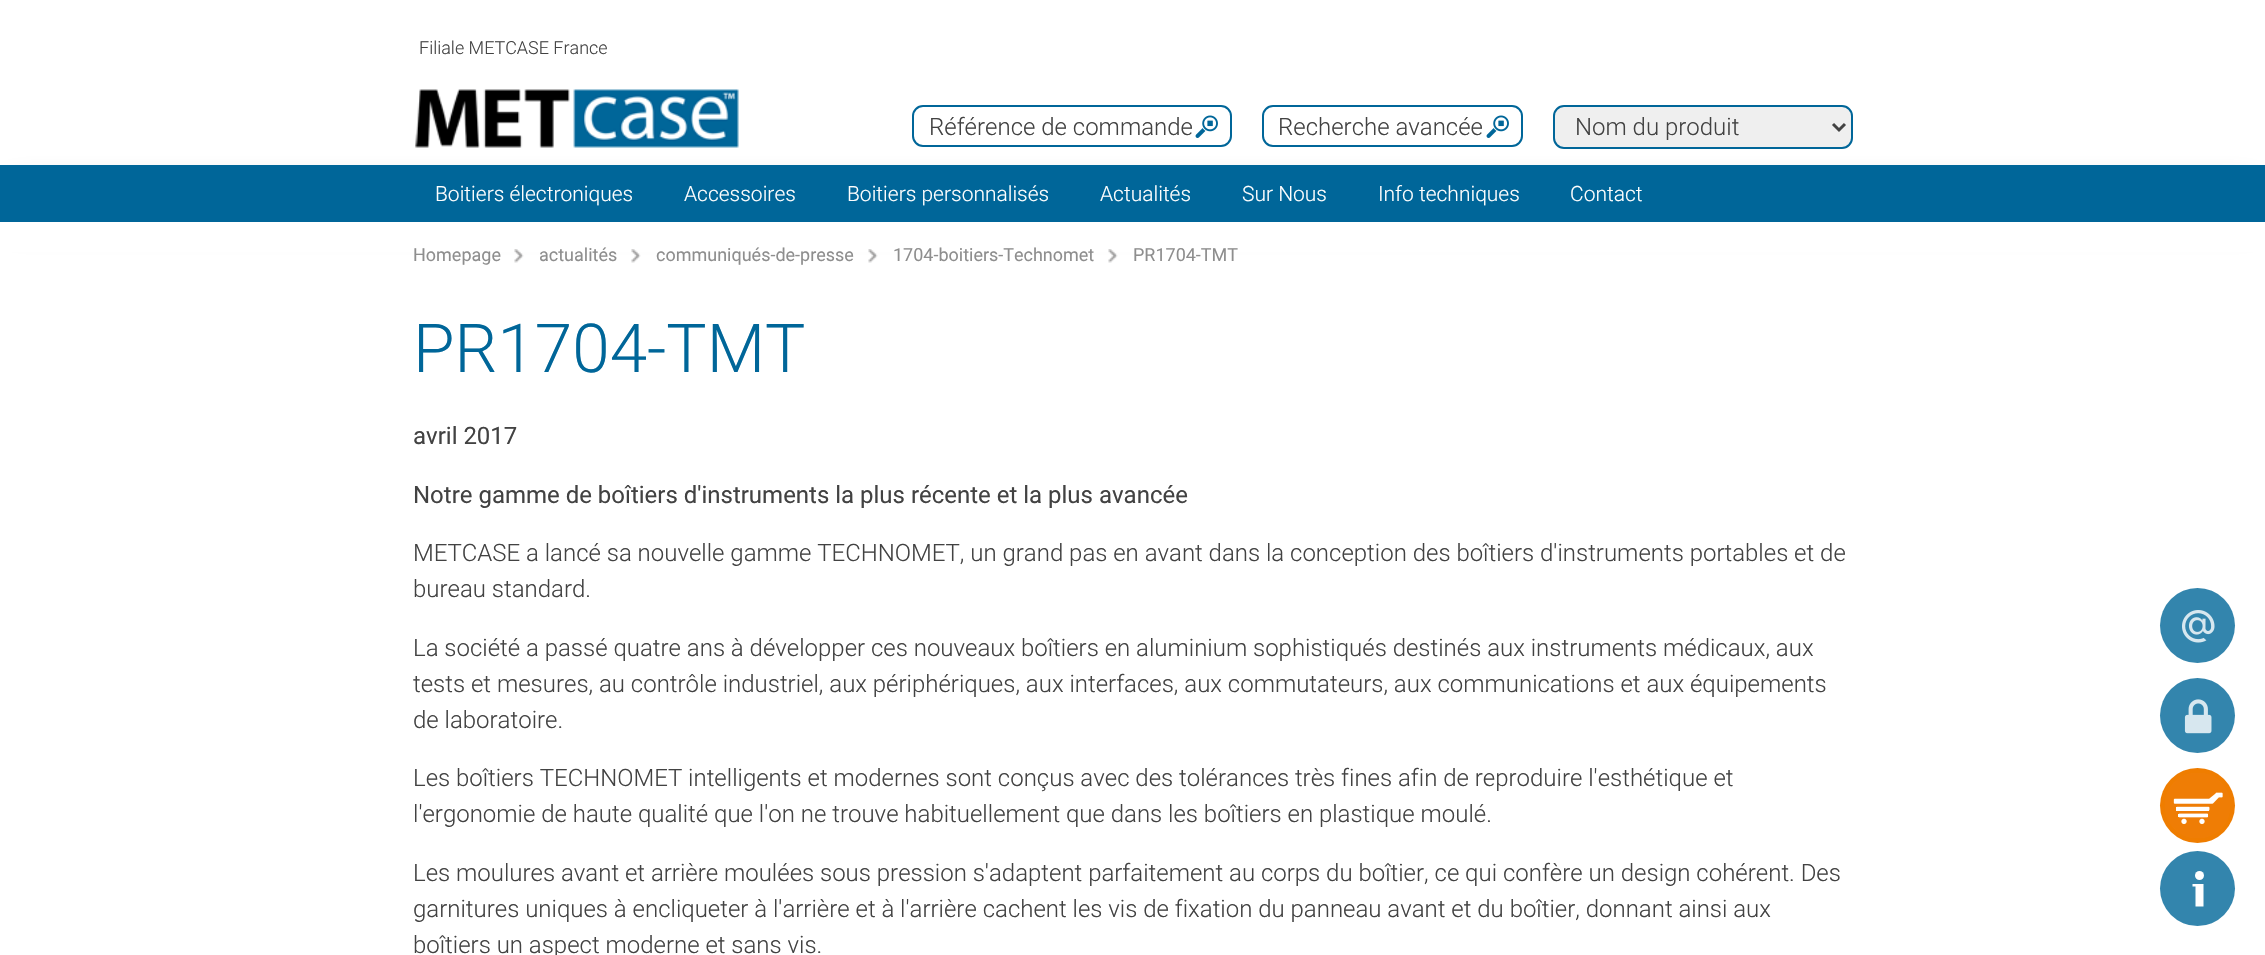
void draw(SkCanvas* canvas) {
	SkPaint paint;
	paint.setAntiAlias(true);
	auto svgPath = [&](const char* data, bool evenOdd = false) {
		SkPath result = *SkParsePath::FromSVGString(data);
		if (evenOdd) result.setFillType(SkPathFillType::kEvenOdd);
		return result;
	};
	canvas->clear(0xffffffff);
	SkFont f1(fontMgr->matchFamilyStyle("Roboto", SkFontStyle(300, SkFontStyle::kNormal_Width, SkFontStyle::kUpright_Slant)), 18);
	f1.setSubpixel(true);
	paint.setColor(0xff424242);
	canvas->drawString("Filiale METCASE France", 419, 54, f1, paint);
	paint.setColor(0xbf000000);
	paint.setMaskFilter(SkMaskFilter::MakeBlur(kNormal_SkBlurStyle, 16.5));
	canvas->drawRect(SkRect::MakeXYWH(18, 195, 2229, 21), paint);
	paint.setMaskFilter(nullptr);
	canvas->drawImageRect(SkImages::DeferredFromEncodedData(SkData::MakeFromFileName("img1.png")), SkRect::MakeXYWH(415, 89, 324, 59), SkSamplingOptions());
	canvas->drawImageRect(SkImages::DeferredFromEncodedData(SkData::MakeFromFileName("img2.png")), SkRect::MakeXYWH(1195, 115, 23, 23), SkSamplingOptions());
	paint.setStroke(true);
	paint.setStrokeWidth(2);
	paint.setColor(0xff006699);
	canvas->drawRoundRect(SkRect::MakeXYWH(913, 106, 318, 40), 10, 10, paint);
	SkFont f2(fontMgr->matchFamilyStyle("Roboto", SkFontStyle(300, SkFontStyle::kNormal_Width, SkFontStyle::kUpright_Slant)), 24);
	f2.setSubpixel(true);
	paint.setStroke(false);
	paint.setColor(0xff424242);
	canvas->drawString("Référence de commande", 929, 135, f2, paint);
	canvas->drawImageRect(SkImages::DeferredFromEncodedData(SkData::MakeFromFileName("img2.png")), SkRect::MakeXYWH(1486, 115, 23, 23), SkSamplingOptions());
	paint.setStroke(true);
	paint.setColor(0xff006699);
	canvas->drawRoundRect(SkRect::MakeXYWH(1263, 106, 259, 40), 10, 10, paint);
	paint.setStroke(false);
	paint.setColor(0xff424242);
	canvas->drawString("Recherche avancée", 1278, 135, f2, paint);
	paint.setColor(0xffefefef);
	canvas->drawRoundRect(SkRect::MakeXYWH(1554, 106, 298, 42), 10, 10, paint);
	paint.setStroke(true);
	paint.setColor(0xff006699);
	canvas->drawRoundRect(SkRect::MakeXYWH(1554, 106, 298, 42), 10, 10, paint);
	paint.setStrokeWidth(3);
	paint.setColor(0xff424242);
	canvas->drawPath(svgPath("M1833 124L1839 130L1845 124"), paint);
	paint.setStroke(false);
	canvas->drawString("Nom du produit", 1575, 135, f2, paint);
	paint.setColor(0xff006699);
	canvas->drawRect(SkRect::MakeXYWH(0, 165, 2265, 57), paint);
	SkFont f3(fontMgr->matchFamilyStyle("Roboto", SkFontStyle(300, SkFontStyle::kNormal_Width, SkFontStyle::kUpright_Slant)), 21);
	f3.setSubpixel(true);
	paint.setColor(0xffffffff);
	canvas->drawString("Boitiers électroniques", 435, 201, f3, paint);
	canvas->drawString("Accessoires", 684, 201, f3, paint);
	canvas->drawString("Boitiers personnalisés", 847, 201, f3, paint);
	canvas->drawString("Actualités", 1100, 201, f3, paint);
	canvas->drawString("Sur Nous", 1242, 201, f3, paint);
	canvas->drawString("Info techniques", 1378, 201, f3, paint);
	canvas->drawString("Contact", 1570, 201, f3, paint);
	canvas->drawRect(SkRect::MakeXYWH(0, 222, 2265, 30), paint);
	canvas->drawImageRect(SkImages::DeferredFromEncodedData(SkData::MakeFromFileName("img3.png")), SkRect::MakeXYWH(514, 249, 10, 14), SkSamplingOptions());
	SkFont f4(fontMgr->matchFamilyStyle("Roboto", SkFontStyle::Normal()), 18);
	f4.setSubpixel(true);
	paint.setColor(0xff8e8e8e);
	canvas->drawString("Homepage", 413, 261, f4, paint);
	canvas->drawImageRect(SkImages::DeferredFromEncodedData(SkData::MakeFromFileName("img4.png")), SkRect::MakeXYWH(631, 249, 10, 14), SkSamplingOptions());
	canvas->drawString("actualités", 539, 261, f4, paint);
	canvas->drawImageRect(SkImages::DeferredFromEncodedData(SkData::MakeFromFileName("img5.png")), SkRect::MakeXYWH(868, 249, 10, 14), SkSamplingOptions());
	canvas->drawString("communiqués-de-presse", 656, 261, f4, paint);
	canvas->drawImageRect(SkImages::DeferredFromEncodedData(SkData::MakeFromFileName("img5.png")), SkRect::MakeXYWH(1108, 249, 10, 14), SkSamplingOptions());
	canvas->drawString("1704-boitiers-Technomet", 893, 261, f4, paint);
	canvas->drawString("PR1704-TMT", 1133, 261, f4, paint);
	SkFont f5(fontMgr->matchFamilyStyle("Roboto", SkFontStyle(300, SkFontStyle::kNormal_Width, SkFontStyle::kUpright_Slant)), 67.5);
	f5.setSubpixel(true);
	paint.setColor(0xff006699);
	canvas->drawString("PR1704-TMT", 413, 372, f5, paint);
	SkFont f6(fontMgr->matchFamilyStyle("Roboto", SkFontStyle::Normal()), 24);
	f6.setSubpixel(true);
	paint.setColor(0xff424242);
	canvas->drawString("avril 2017", 413, 444, f6, paint);
	canvas->drawString("Notre gamme de boîtiers d'instruments la plus récente et la plus avancée", 413, 503, f6, paint);
	canvas->drawString("METCASE a lancé sa nouvelle gamme TECHNOMET, un grand pas en avant dans la conception des boîtiers d'instruments portables et de", 413, 561, f2, paint);
	canvas->drawString("bureau standard.", 413, 597, f2, paint);
	canvas->drawString("La société a passé quatre ans à développer ces nouveaux boîtiers en aluminium sophistiqués destinés aux instruments médicaux, aux", 413, 656, f2, paint);
	canvas->drawString("tests et mesures, au contrôle industriel, aux périphériques, aux interfaces, aux commutateurs, aux communications et aux équipements", 413, 692, f2, paint);
	canvas->drawString("de laboratoire.", 413, 728, f2, paint);
	canvas->drawString("Les boîtiers TECHNOMET intelligents et modernes sont conçus avec des tolérances très fines afin de reproduire l'esthétique et", 413, 786, f2, paint);
	canvas->drawString("l'ergonomie de haute qualité que l'on ne trouve habituellement que dans les boîtiers en plastique moulé.", 413, 822, f2, paint);
	canvas->drawString("Les moulures avant et arrière moulées sous pression s'adaptent parfaitement au corps du boîtier, ce qui confère un design cohérent. Des", 413, 881, f2, paint);
	canvas->drawString("garnitures uniques à encliqueter à l'arrière et à l'arrière cachent les vis de fixation du panneau avant et du boîtier, donnant ainsi aux", 413, 917, f2, paint);
	canvas->drawString("boîtiers un aspect moderne et sans vis.", 413, 953, f2, paint);
	paint.setColor(0xff3385ad);
	canvas->drawCircle(2197.5, 625.5, 37.5, paint);
	canvas->drawImageRect(SkImages::DeferredFromEncodedData(SkData::MakeFromFileName("img6.png")), SkRect::MakeXYWH(2182, 610, 33, 33), SkSamplingOptions());
	canvas->drawCircle(2197.5, 715.5, 37.5, paint);
	canvas->drawImageRect(SkImages::DeferredFromEncodedData(SkData::MakeFromFileName("img7.png")), SkRect::MakeXYWH(2184, 699, 28, 35), SkSamplingOptions());
	paint.setColor(0xffef7d00);
	canvas->drawCircle(2197.5, 805.5, 37.5, paint);
	canvas->drawImageRect(SkImages::DeferredFromEncodedData(SkData::MakeFromFileName("img8.png")), SkRect::MakeXYWH(2165, 773, 65, 65), SkSamplingOptions());
	paint.setColor(0xff3385ad);
	canvas->drawCircle(2197.5, 888.5, 37.5, paint);
	paint.setColor(0xffffffff);
	canvas->drawPath(svgPath("M2195.5 884H2192.5V886.5H2195.5V906.5H2203.5V884Z"), paint);
	canvas->drawCircle(2199.5, 875.5, 4.5, paint);
}
